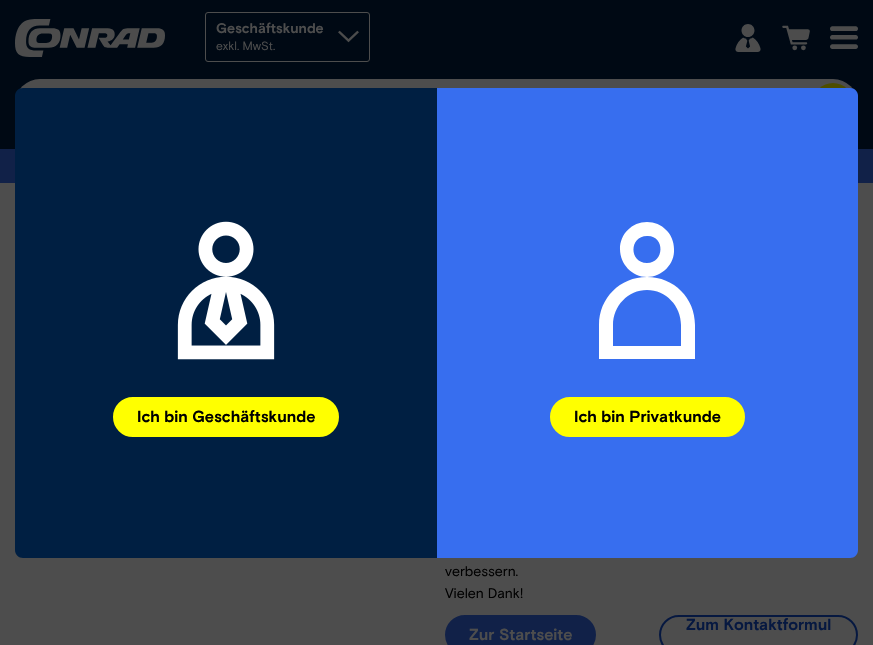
void draw(SkCanvas* canvas) {
	SkPaint paint;
	paint.setAntiAlias(true);
	auto svgPath = [&](const char* data, bool evenOdd = false) {
		SkPath result = *SkParsePath::FromSVGString(data);
		if (evenOdd) result.setFillType(SkPathFillType::kEvenOdd);
		return result;
	};
	canvas->clear(0xff4d4d4d);
	paint.setColor(0xff000914);
	canvas->drawRect(SkRect::MakeXYWH(0, 0, 873, 149), paint);
	canvas->drawImageRect(SkImages::DeferredFromEncodedData(SkData::MakeFromFileName("img1.png")), SkRect::MakeXYWH(15, 19, 150, 38), SkSamplingOptions());
	paint.setStroke(true);
	paint.setStrokeWidth(1);
	paint.setColor(0xff4d4d4d);
	canvas->drawRoundRect(SkRect::MakeXYWH(205.5, 12.5, 164, 49), 2.5, 2.5, paint);
	SkFont f1(fontMgr->matchFamilyStyle("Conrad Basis", SkFontStyle::Bold()), 14);
	f1.setSubpixel(true);
	paint.setStroke(false);
	canvas->drawString("Geschäftskunde", 216, 33, f1, paint);
	SkFont f2(fontMgr->matchFamilyStyle("Conrad Basis", SkFontStyle::Normal()), 12);
	f2.setSubpixel(true);
	canvas->drawString("exkl. MwSt.", 216, 50, f2, paint);
	canvas->drawImageRect(SkImages::DeferredFromEncodedData(SkData::MakeFromFileName("img2.png")), SkRect::MakeXYWH(338, 30, 21, 13), SkSamplingOptions());
	canvas->drawImageRect(SkImages::DeferredFromEncodedData(SkData::MakeFromFileName("img3.png")), SkRect::MakeXYWH(735, 24, 26, 28), SkSamplingOptions());
	canvas->drawImageRect(SkImages::DeferredFromEncodedData(SkData::MakeFromFileName("img4.png")), SkRect::MakeXYWH(782, 25, 28, 26), SkSamplingOptions());
	canvas->drawImageRect(SkImages::DeferredFromEncodedData(SkData::MakeFromFileName("img5.png")), SkRect::MakeXYWH(830, 26, 28, 23), SkSamplingOptions());
	canvas->drawRoundRect(SkRect::MakeXYWH(15, 79, 843, 50), 25, 25, paint);
	paint.setColor(0xff4d4d00);
	canvas->drawCircle(833, 103, 20, paint);
	paint.setColor(0xff112148);
	canvas->drawRect(SkRect::MakeXYWH(0, 149, 873, 34), paint);
	paint.setColor(0xff001f42);
	canvas->drawPath(svgPath("M23 88H437V558H23C18.5 558 15 554.5 15 550V96C15 91.5 18.5 88 23 88Z"), paint);
	canvas->drawImageRect(SkImages::DeferredFromEncodedData(SkData::MakeFromFileName("img6.png")), SkRect::MakeXYWH(177, 221, 98, 139), SkSamplingOptions());
	paint.setColor(0xffffff00);
	canvas->drawRoundRect(SkRect::MakeXYWH(114, 398, 224, 38), 19, 19, paint);
	paint.setStroke(true);
	paint.setStrokeWidth(2);
	canvas->drawRoundRect(SkRect::MakeXYWH(114, 398, 224, 38), 19, 19, paint);
	SkFont f3(fontMgr->matchFamilyStyle("Conrad Basis", SkFontStyle::Bold()), 16);
	f3.setSubpixel(true);
	paint.setStroke(false);
	paint.setColor(0xff000000);
	canvas->drawString("Ich bin Geschäftskunde", 137, 422, f3, paint);
	paint.setColor(0xff376eef);
	canvas->drawPath(svgPath("M437 88H850C854.5 88 858 91.5 858 96V550C858 554.5 854.5 558 850 558H437Z"), paint);
	paint.setColor(0xffffffff);
	canvas->drawPath(svgPath("M647 277C632 277 620 264 620 249C620 234 632 222 647 222C662 222 674 234 674 249C675 264 662 277 647 277ZM647 236C629 236 629 263 647 263C665 263 665 235 647 236ZM695 359H599V325C599 298 620 277 647 277C674 277 695 298 695 325ZM613 346H681V325C681 306 666 290 647 290C628 290 613 306 613 325Z"), paint);
	paint.setColor(0xffffff00);
	canvas->drawRoundRect(SkRect::MakeXYWH(551, 398, 193, 38), 19, 19, paint);
	paint.setStroke(true);
	canvas->drawRoundRect(SkRect::MakeXYWH(551, 398, 193, 38), 19, 19, paint);
	paint.setStroke(false);
	paint.setColor(0xff000000);
	canvas->drawString("Ich bin Privatkunde", 574, 422, f3, paint);
	SkFont f4(fontMgr->matchFamilyStyle("Conrad Basis", SkFontStyle::Normal()), 14);
	f4.setSubpixel(true);
	canvas->drawString("verbessern.", 445, 576, f4, paint);
	canvas->drawString("Vielen Dank!", 445, 598, f4, paint);
	paint.setStroke(true);
	paint.setColor(0xff061840);
	canvas->drawRoundRect(SkRect::MakeXYWH(660, 616, 197, 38), 19, 19, paint);
	paint.setStroke(false);
	canvas->drawString("Zum Kontaktformul", 686, 630, f3, paint);
	paint.setColor(0xff112148);
	canvas->drawRoundRect(SkRect::MakeXYWH(446, 616, 149, 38), 19, 19, paint);
	paint.setStroke(true);
	canvas->drawRoundRect(SkRect::MakeXYWH(446, 616, 149, 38), 19, 19, paint);
	paint.setStroke(false);
	paint.setColor(0xff4d4d4d);
	canvas->drawString("Zur Startseite", 469, 640, f3, paint);
}
